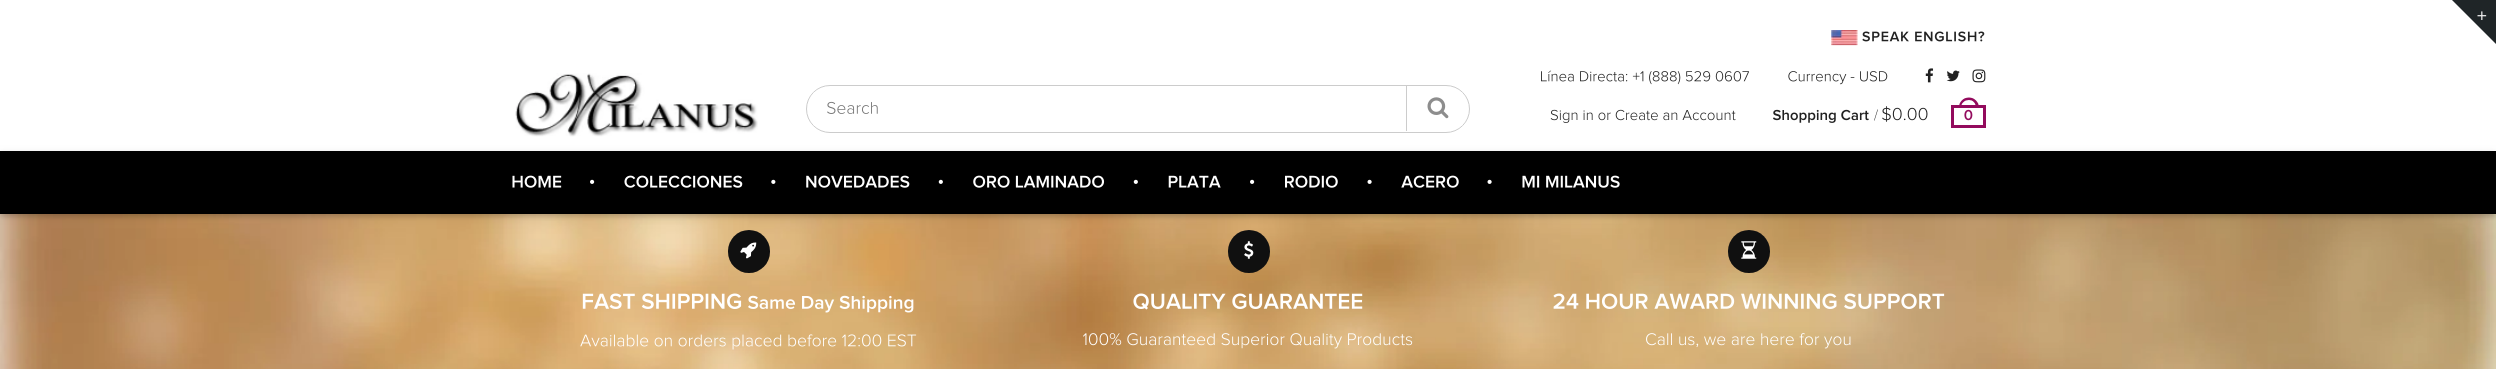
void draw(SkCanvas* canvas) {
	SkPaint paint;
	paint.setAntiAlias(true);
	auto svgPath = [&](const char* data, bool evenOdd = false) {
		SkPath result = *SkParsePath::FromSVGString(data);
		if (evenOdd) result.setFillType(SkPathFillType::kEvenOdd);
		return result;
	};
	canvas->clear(0xffffffff);
	paint.setColor(0xff1f2527);
	canvas->drawPath(svgPath("M2452 0H2496V44Z"), paint);
	canvas->drawImageRect(SkImages::DeferredFromEncodedData(SkData::MakeFromFileName("img1.png")), SkRect::MakeXYWH(2477, 11, 10, 9), SkSamplingOptions());
	canvas->drawImageRect(SkImages::DeferredFromEncodedData(SkData::MakeFromFileName("img2.png")), SkRect::MakeXYWH(1831, 30, 27, 16), SkSamplingOptions());
	canvas->drawImageRect(SkImages::DeferredFromEncodedData(SkData::MakeFromFileName("img3.png")), SkRect::MakeXYWH(1862, 31, 123, 11), SkSamplingOptions());
	canvas->drawImageRect(SkImages::DeferredFromEncodedData(SkData::MakeFromFileName("img4.png")), SkRect::MakeXYWH(515, 73, 243, 64), SkSamplingOptions());
	paint.setStroke(true);
	paint.setStrokeWidth(1);
	paint.setColor(0xffcccccc);
	canvas->drawRoundRect(SkRect::MakeXYWH(806.5, 85.5, 663, 47), 23.5, 23.5, paint);
	canvas->drawImageRect(SkImages::DeferredFromEncodedData(SkData::MakeFromFileName("img5.png")), SkRect::MakeXYWH(827, 101, 51, 13), SkSamplingOptions());
	paint.setStroke(false);
	canvas->drawRect(SkRect::MakeXYWH(1406, 86, 1, 45), paint);
	canvas->drawImageRect(SkImages::DeferredFromEncodedData(SkData::MakeFromFileName("img6.png")), SkRect::MakeXYWH(1427, 97, 22, 22), SkSamplingOptions());
	canvas->drawImageRect(SkImages::DeferredFromEncodedData(SkData::MakeFromFileName("img7.png")), SkRect::MakeXYWH(1541, 70, 87, 12), SkSamplingOptions());
	canvas->drawImageRect(SkImages::DeferredFromEncodedData(SkData::MakeFromFileName("img8.png")), SkRect::MakeXYWH(1632, 71, 117, 14), SkSamplingOptions());
	canvas->drawImageRect(SkImages::DeferredFromEncodedData(SkData::MakeFromFileName("img9.png")), SkRect::MakeXYWH(1788, 71, 67, 14), SkSamplingOptions());
	canvas->drawImageRect(SkImages::DeferredFromEncodedData(SkData::MakeFromFileName("img10.png")), SkRect::MakeXYWH(1860, 71, 28, 11), SkSamplingOptions());
	canvas->drawImageRect(SkImages::DeferredFromEncodedData(SkData::MakeFromFileName("img11.png")), SkRect::MakeXYWH(1925, 68, 9, 15), SkSamplingOptions());
	canvas->drawImageRect(SkImages::DeferredFromEncodedData(SkData::MakeFromFileName("img12.png")), SkRect::MakeXYWH(1946, 70, 14, 12), SkSamplingOptions());
	canvas->drawImageRect(SkImages::DeferredFromEncodedData(SkData::MakeFromFileName("img13.png")), SkRect::MakeXYWH(1972, 69, 14, 14), SkSamplingOptions());
	canvas->drawImageRect(SkImages::DeferredFromEncodedData(SkData::MakeFromFileName("img14.png")), SkRect::MakeXYWH(1550, 109, 186, 14), SkSamplingOptions());
	canvas->drawImageRect(SkImages::DeferredFromEncodedData(SkData::MakeFromFileName("img15.png")), SkRect::MakeXYWH(1773, 109, 96, 14), SkSamplingOptions());
	paint.setColor(0xff212121);
	canvas->drawPath(svgPath("M1874.5 120.5L1878 109.5H1877.5L1874 120.5Z"), paint);
	canvas->drawImageRect(SkImages::DeferredFromEncodedData(SkData::MakeFromFileName("img16.png")), SkRect::MakeXYWH(1882, 106, 46, 16), SkSamplingOptions());
	paint.setColor(0xff930b5d);
	canvas->drawPath(svgPath("M1969 97.5C1974.5 97.5 1979 102 1979 107.5H1959C1959 102 1963 97.5 1969 97.5ZM1969 100C1973 100 1976 103.5 1976 107.5H1961C1961 103.5 1964.5 100 1969 100Z", true), paint);
	paint.setStroke(true);
	paint.setStrokeWidth(3);
	canvas->drawRect(SkRect::MakeXYWH(1952.5, 106.5, 32, 20), paint);
	canvas->drawImageRect(SkImages::DeferredFromEncodedData(SkData::MakeFromFileName("img17.png")), SkRect::MakeXYWH(1964, 109, 9, 12), SkSamplingOptions());
	canvas->drawImageRect(SkImages::DeferredFromEncodedData(SkData::MakeFromFileName("img30.png")), SkRect::MakeXYWH(0, 214, 2496, 155), SkSamplingOptions());
	paint.setStroke(false);
	paint.setColor(0x42000000);
	paint.setMaskFilter(SkMaskFilter::MakeBlur(kNormal_SkBlurStyle, 3));
	canvas->drawRect(SkRect::MakeXYWH(0, 154, 2496, 62), paint);
	paint.setMaskFilter(nullptr);
	paint.setColor(0xff000000);
	canvas->drawRect(SkRect::MakeXYWH(0, 151, 2496, 63), paint);
	canvas->drawImageRect(SkImages::DeferredFromEncodedData(SkData::MakeFromFileName("img18.png")), SkRect::MakeXYWH(512, 175, 50, 13), SkSamplingOptions());
	canvas->drawImageRect(SkImages::DeferredFromEncodedData(SkData::MakeFromFileName("img19.png")), SkRect::MakeXYWH(590, 179, 5, 5), SkSamplingOptions());
	canvas->drawImageRect(SkImages::DeferredFromEncodedData(SkData::MakeFromFileName("img20.png")), SkRect::MakeXYWH(624, 175, 119, 13), SkSamplingOptions());
	canvas->drawImageRect(SkImages::DeferredFromEncodedData(SkData::MakeFromFileName("img21.png")), SkRect::MakeXYWH(771, 179, 5, 5), SkSamplingOptions());
	canvas->drawImageRect(SkImages::DeferredFromEncodedData(SkData::MakeFromFileName("img22.png")), SkRect::MakeXYWH(806, 175, 104, 13), SkSamplingOptions());
	canvas->drawImageRect(SkImages::DeferredFromEncodedData(SkData::MakeFromFileName("img23.png")), SkRect::MakeXYWH(938, 179, 5, 5), SkSamplingOptions());
	canvas->drawImageRect(SkImages::DeferredFromEncodedData(SkData::MakeFromFileName("img24.png")), SkRect::MakeXYWH(973, 175, 132, 13), SkSamplingOptions());
	canvas->drawImageRect(SkImages::DeferredFromEncodedData(SkData::MakeFromFileName("img23.png")), SkRect::MakeXYWH(1133, 179, 5, 5), SkSamplingOptions());
	canvas->drawImageRect(SkImages::DeferredFromEncodedData(SkData::MakeFromFileName("img25.png")), SkRect::MakeXYWH(1168, 175, 53, 13), SkSamplingOptions());
	canvas->drawImageRect(SkImages::DeferredFromEncodedData(SkData::MakeFromFileName("img19.png")), SkRect::MakeXYWH(1250, 179, 5, 5), SkSamplingOptions());
	canvas->drawImageRect(SkImages::DeferredFromEncodedData(SkData::MakeFromFileName("img26.png")), SkRect::MakeXYWH(1285, 175, 53, 13), SkSamplingOptions());
	canvas->drawImageRect(SkImages::DeferredFromEncodedData(SkData::MakeFromFileName("img27.png")), SkRect::MakeXYWH(1367, 179, 5, 5), SkSamplingOptions());
	canvas->drawImageRect(SkImages::DeferredFromEncodedData(SkData::MakeFromFileName("img28.png")), SkRect::MakeXYWH(1401, 175, 58, 13), SkSamplingOptions());
	canvas->drawImageRect(SkImages::DeferredFromEncodedData(SkData::MakeFromFileName("img27.png")), SkRect::MakeXYWH(1487, 179, 5, 5), SkSamplingOptions());
	canvas->drawImageRect(SkImages::DeferredFromEncodedData(SkData::MakeFromFileName("img29.png")), SkRect::MakeXYWH(1522, 175, 98, 13), SkSamplingOptions());
	paint.setColor(0xff101010);
	canvas->drawRoundRect(SkRect::MakeXYWH(728, 230, 42, 43), 21, 21, paint);
	canvas->drawImageRect(SkImages::DeferredFromEncodedData(SkData::MakeFromFileName("img31.png")), SkRect::MakeXYWH(740, 242, 17, 17), SkSamplingOptions());
	canvas->drawImageRect(SkImages::DeferredFromEncodedData(SkData::MakeFromFileName("img32.png")), SkRect::MakeXYWH(582, 293, 160, 16), SkSamplingOptions());
	canvas->drawImageRect(SkImages::DeferredFromEncodedData(SkData::MakeFromFileName("img33.png")), SkRect::MakeXYWH(748, 295, 166, 18), SkSamplingOptions());
	canvas->drawImageRect(SkImages::DeferredFromEncodedData(SkData::MakeFromFileName("img34.png")), SkRect::MakeXYWH(580, 334, 337, 16), SkSamplingOptions());
	canvas->drawRoundRect(SkRect::MakeXYWH(1228, 230, 42, 43), 21, 21, paint);
	canvas->drawImageRect(SkImages::DeferredFromEncodedData(SkData::MakeFromFileName("img35.png")), SkRect::MakeXYWH(1244, 241, 10, 18), SkSamplingOptions());
	canvas->drawImageRect(SkImages::DeferredFromEncodedData(SkData::MakeFromFileName("img36.png")), SkRect::MakeXYWH(1133, 293, 230, 17), SkSamplingOptions());
	canvas->drawImageRect(SkImages::DeferredFromEncodedData(SkData::MakeFromFileName("img37.png")), SkRect::MakeXYWH(1083, 333, 330, 16), SkSamplingOptions());
	canvas->drawRoundRect(SkRect::MakeXYWH(1728, 230, 42, 43), 21, 21, paint);
	canvas->drawImageRect(SkImages::DeferredFromEncodedData(SkData::MakeFromFileName("img38.png")), SkRect::MakeXYWH(1741, 241, 16, 18), SkSamplingOptions());
	canvas->drawImageRect(SkImages::DeferredFromEncodedData(SkData::MakeFromFileName("img39.png")), SkRect::MakeXYWH(1553, 293, 392, 16), SkSamplingOptions());
	canvas->drawImageRect(SkImages::DeferredFromEncodedData(SkData::MakeFromFileName("img40.png")), SkRect::MakeXYWH(1646, 333, 205, 16), SkSamplingOptions());
}
